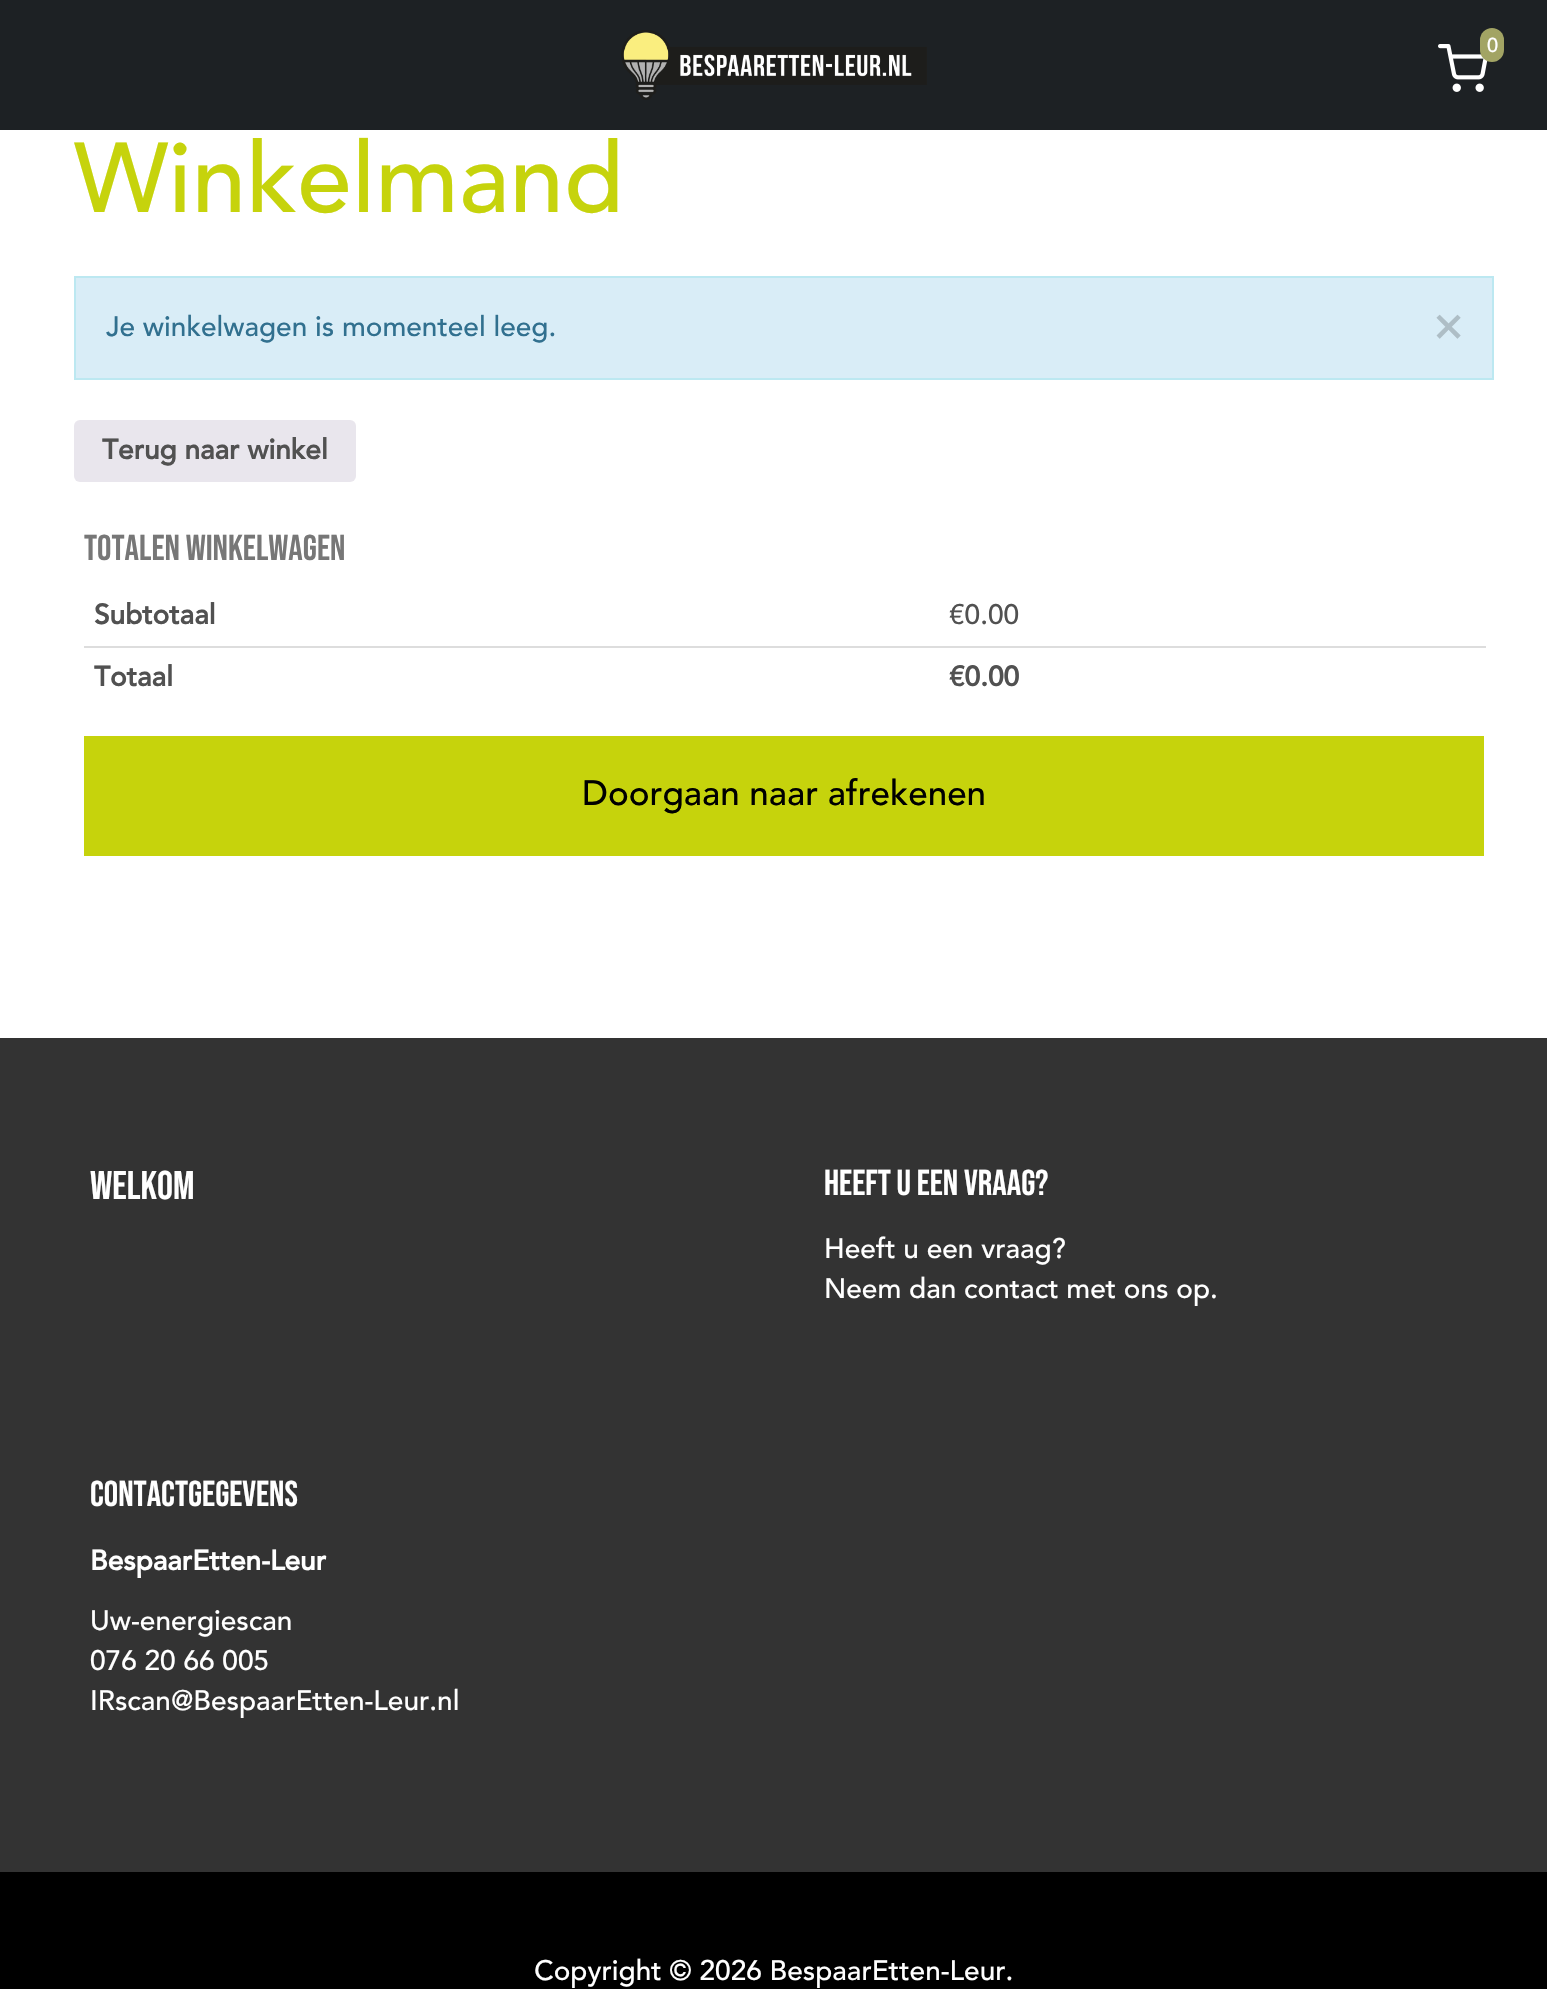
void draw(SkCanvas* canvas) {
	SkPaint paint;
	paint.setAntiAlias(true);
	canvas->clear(0xffffffff);
	paint.setColor(0xff1d2124);
	canvas->drawRect(SkRect::MakeXYWH(0, 0, 1547, 130), paint);
	canvas->drawImageRect(SkImages::DeferredFromEncodedData(SkData::MakeFromFileName("img1.png")), SkRect::MakeXYWH(621, 30, 306, 70), SkSamplingOptions());
	canvas->drawImageRect(SkImages::DeferredFromEncodedData(SkData::MakeFromFileName("img2.png")), SkRect::MakeXYWH(1438, 44, 50, 48), SkSamplingOptions());
	paint.setColor(0xffa2a464);
	canvas->drawRoundRect(SkRect::MakeXYWH(1480, 28, 24, 34), 12, 12, paint);
	SkFont f1(fontMgr->matchFamilyStyle("Avenir", SkFontStyle(500, SkFontStyle::kNormal_Width, SkFontStyle::kUpright_Slant)), 20);
	f1.setSubpixel(true);
	paint.setColor(0xffffffff);
	canvas->drawString("0", 1487, 52, f1, paint);
	SkFont f2(fontMgr->matchFamilyStyle("Avenir", SkFontStyle(500, SkFontStyle::kNormal_Width, SkFontStyle::kUpright_Slant)), 98);
	f2.setSubpixel(true);
	paint.setColor(0xffc6d30c);
	canvas->drawString("Winkelmand", 74, 212, f2, paint);
	paint.setColor(0xffd9edf7);
	canvas->drawRect(SkRect::MakeXYWH(75, 277, 1418, 102), paint);
	paint.setStroke(true);
	paint.setStrokeWidth(2);
	paint.setColor(0xffbce8f1);
	canvas->drawRect(SkRect::MakeXYWH(75, 277, 1418, 102), paint);
	SkFont f3(fontMgr->matchFamilyStyle("Avenir", SkFontStyle(500, SkFontStyle::kNormal_Width, SkFontStyle::kUpright_Slant)), 28);
	f3.setSubpixel(true);
	paint.setStroke(false);
	paint.setColor(0xff31708f);
	canvas->drawString("Je winkelwagen is momenteel leeg.", 106, 336, f3, paint);
	SkFont f4(fontMgr->matchFamilyStyle("Avenir", SkFontStyle::Bold()), 42);
	f4.setSubpixel(true);
	paint.setColor(0xffaebec6);
	canvas->drawString("×", 1434, 340, f4, paint);
	paint.setColor(0xffe9e6ed);
	canvas->drawRoundRect(SkRect::MakeXYWH(74, 420, 282, 62), 6, 6, paint);
	SkFont f5(fontMgr->matchFamilyStyle("Avenir", SkFontStyle::Bold()), 28);
	f5.setSubpixel(true);
	paint.setColor(0xff515151);
	canvas->drawString("Terug naar winkel", 102, 459, f5, paint);
	SkFont f6(fontMgr->matchFamilyStyle("Bebas Neue", SkFontStyle::Normal()), 36);
	f6.setSubpixel(true);
	paint.setColor(0xff777777);
	canvas->drawString("Totalen winkelwagen", 84, 560, f6, paint);
	paint.setColor(0xff515151);
	canvas->drawString("Subtotaal", 94, 624, f5, paint);
	paint.setColor(0xffdddddd);
	canvas->drawRect(SkRect::MakeXYWH(84, 646, 1402, 2), paint);
	paint.setColor(0xff515151);
	canvas->drawString("€0.00", 949, 624, f3, paint);
	canvas->drawString("Totaal", 94, 686, f5, paint);
	canvas->drawString("€0.00", 949, 686, f5, paint);
	paint.setColor(0xffc6d30c);
	canvas->drawRect(SkRect::MakeXYWH(84, 736, 1400, 120), paint);
	SkFont f7(fontMgr->matchFamilyStyle("Avenir", SkFontStyle(500, SkFontStyle::kNormal_Width, SkFontStyle::kUpright_Slant)), 35);
	f7.setSubpixel(true);
	paint.setColor(0xff000000);
	canvas->drawString("Doorgaan naar afrekenen", 582, 805, f7, paint);
	canvas->drawRect(SkRect::MakeXYWH(0, 1872, 1547, 117), paint);
	paint.setColor(0xff333333);
	canvas->drawRect(SkRect::MakeXYWH(0, 1038, 1547, 834), paint);
	SkFont f8(fontMgr->matchFamilyStyle("Bebas Neue", SkFontStyle::Normal()), 40);
	f8.setSubpixel(true);
	paint.setColor(0xffffffff);
	canvas->drawString("Welkom", 90, 1199, f8, paint);
	canvas->drawString("Heeft u een vraag?", 824, 1195, f6, paint);
	canvas->drawString("Heeft u een vraag?", 824, 1258, f3, paint);
	canvas->drawString("Neem dan contact met ons op.", 824, 1298, f3, paint);
	canvas->drawString("Contactgegevens", 90, 1506, f6, paint);
	canvas->drawString("BespaarEtten-Leur", 90, 1570, f5, paint);
	canvas->drawString("Uw-energiescan", 90, 1630, f3, paint);
	canvas->drawString("076 20 66 005", 90, 1670, f3, paint);
	canvas->drawString("IRscan@BespaarEtten-Leur.nl", 90, 1710, f3, paint);
	canvas->drawString("Copyright © 2026 BespaarEtten-Leur.", 534, 1980, f3, paint);
}
